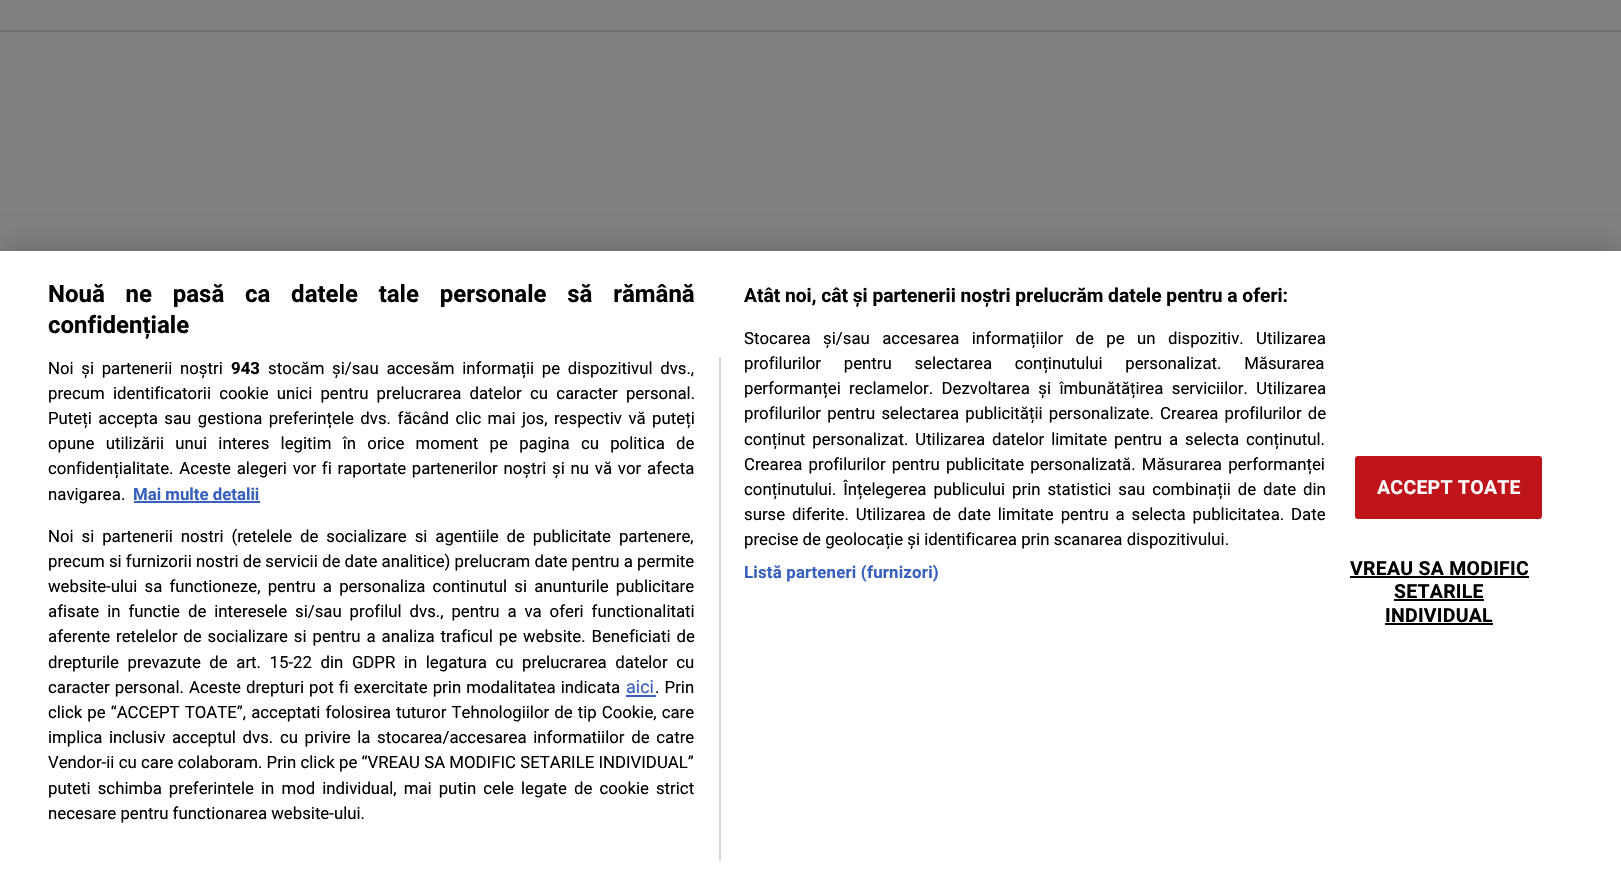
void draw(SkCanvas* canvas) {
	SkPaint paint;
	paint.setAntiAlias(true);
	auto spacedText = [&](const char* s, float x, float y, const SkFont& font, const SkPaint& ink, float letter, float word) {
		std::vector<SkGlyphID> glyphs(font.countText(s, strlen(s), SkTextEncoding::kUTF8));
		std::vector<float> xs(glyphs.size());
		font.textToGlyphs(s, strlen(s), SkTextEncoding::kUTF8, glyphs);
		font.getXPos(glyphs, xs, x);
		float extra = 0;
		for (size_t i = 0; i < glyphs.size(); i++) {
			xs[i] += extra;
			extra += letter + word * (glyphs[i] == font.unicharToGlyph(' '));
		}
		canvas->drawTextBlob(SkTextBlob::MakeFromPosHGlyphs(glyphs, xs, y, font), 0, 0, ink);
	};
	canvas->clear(0xff808080);
	paint.setColor(0xff717171);
	canvas->drawRect(SkRect::MakeXYWH(0, 30, 1621, 2), paint);
	paint.setColor(0x33000000);
	paint.setMaskFilter(SkMaskFilter::MakeBlur(kNormal_SkBlurStyle, 13.5));
	canvas->drawRect(SkRect::MakeXYWH(0, 251, 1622, 625), paint);
	paint.setMaskFilter(nullptr);
	paint.setColor(0xffffffff);
	canvas->drawRect(SkRect::MakeXYWH(0, 251, 1621, 625), paint);
	SkFont f1(fontMgr->matchFamilyStyle("Roboto", SkFontStyle::Bold()), 24);
	f1.setSubpixel(true);
	paint.setColor(0xff000000);
	spacedText("Nouă ne pasă ca datele tale personale să rămână", 48, 302, f1, paint, 0, 14.75);
	canvas->drawString("confidențiale", 48, 333, f1, paint);
	SkFont f2(fontMgr->matchFamilyStyle("Roboto", SkFontStyle::Bold()), 19.2);
	f2.setSubpixel(true);
	canvas->drawString("Atât noi, cât și partenerii noștri prelucrăm datele pentru a oferi:", 744, 302, f2, paint);
	SkFont f3(fontMgr->matchFamilyStyle("Roboto", SkFontStyle::Normal()), 16.8);
	f3.setSubpixel(true);
	spacedText("Stocarea și/sau accesarea informațiilor de pe un dispozitiv. Utilizarea", 744, 344, f3, paint, 0, 8.25);
	spacedText("profilurilor pentru selectarea conținutului personalizat. Măsurarea", 744, 369, f3, paint, 0, 18.5);
	spacedText("performanței reclamelor. Dezvoltarea și îmbunătățirea serviciilor. Utilizarea", 744, 394, f3, paint, 0, 4.25);
	spacedText("profilurilor pentru selectarea publicității personalizate. Crearea profilurilor de", 744, 419, f3, paint, 0, 2);
	spacedText("conținut personalizat. Utilizarea datelor limitate pentru a selecta conținutul.", 744, 445, f3, paint, 0, 2.75);
	spacedText("Crearea profilurilor pentru publicitate personalizată. Măsurarea performanței", 744, 470, f3, paint, 0, 2);
	spacedText("conținutului. Înțelegerea publicului prin statistici sau combinații de date din", 744, 495, f3, paint, 0, 2.75);
	spacedText("surse diferite. Utilizarea de date limitate pentru a selecta publicitatea. Date", 744, 520, f3, paint, 0, 2.75);
	canvas->drawString("precise de geolocație și identificarea prin scanarea dispozitivului.", 744, 545, f3, paint);
	SkFont f4(fontMgr->matchFamilyStyle("Roboto", SkFontStyle::Bold()), 16.8);
	f4.setSubpixel(true);
	paint.setColor(0xff3860be);
	spacedText("Listă parteneri (furnizori)", 744, 578, f4, paint, 0.2, 0);
	paint.setColor(0xffd8d8d8);
	canvas->drawRect(SkRect::MakeXYWH(719, 357, 2, 504), paint);
	paint.setColor(0xff000000);
	spacedText("Noi și partenerii noștri", 48, 374, f3, paint, 0, 3.5);
	canvas->drawString("943", 231, 374, f4, paint);
	spacedText("stocăm și/sau accesăm informații pe dispozitivul dvs.,", 268, 374, f3, paint, 0, 3.5);
	spacedText("precum identificatorii cookie unici pentru prelucrarea datelor cu caracter personal.", 48, 399, f3, paint, 0, 4);
	spacedText("Puteți accepta sau gestiona preferințele dvs. făcând clic mai jos, respectiv vă puteți", 48, 424, f3, paint, 0, 2.25);
	spacedText("opune utilizării unui interes legitim în orice moment pe pagina cu politica de", 48, 449, f3, paint, 0, 7.1);
	spacedText("confidențialitate. Aceste alegeri vor fi raportate partenerilor noștri și nu vă vor afecta", 48, 474, f3, paint, 0, 1.6);
	canvas->drawString("navigarea.", 48, 500, f3, paint);
	paint.setColor(0xff3860be);
	canvas->drawString("Mai multe detalii", 133, 500, f4, paint);
	canvas->drawRect(SkRect::MakeXYWH(134, 501, 126, 2), paint);
	paint.setColor(0xff000000);
	spacedText("Noi si partenerii nostri (retelele de socializare si agentiile de publicitate partenere,", 48, 542, f3, paint, 0, 3.75);
	canvas->drawString("precum si furnizorii nostri de servicii de date analitice) prelucram date pentru a permite", 48, 567, f3, paint);
	spacedText("website-ului sa functioneze, pentru a personaliza continutul si anunturile publicitare", 48, 592, f3, paint, 0, 3);
	spacedText("afisate in functie de interesele si/sau profilul dvs., pentru a va oferi functionalitati", 48, 617, f3, paint, 0, 3.75);
	spacedText("aferente retelelor de socializare si pentru a analiza traficul pe website. Beneficiati de", 48, 642, f3, paint, 0, 1.75);
	spacedText("drepturile prevazute de art. 15-22 din GDPR in legatura cu prelucrarea datelor cu", 48, 668, f3, paint, 0, 4.4);
	spacedText("caracter personal. Aceste drepturi pot fi exercitate prin modalitatea indicata", 48, 693, f3, paint, 0, 1);
	SkFont f5(fontMgr->matchFamilyStyle("Roboto", SkFontStyle::Normal()), 18);
	f5.setSubpixel(true);
	paint.setColor(0xff3860be);
	canvas->drawString("aici", 626, 693, f5, paint);
	canvas->drawRect(SkRect::MakeXYWH(626, 695, 30, 2), paint);
	paint.setColor(0xff000000);
	spacedText(". Prin", 655, 693, f3, paint, 0, 1);
	spacedText("click pe “ACCEPT TOATE”, acceptati folosirea tuturor Tehnologiilor de tip Cookie, care", 48, 718, f3, paint, 0, 0.9);
	spacedText("implica inclusiv acceptul dvs. cu privire la stocarea/accesarea informatiilor de catre", 48, 743, f3, paint, 0, 2.5);
	spacedText("Vendor-ii cu care colaboram. Prin click pe “VREAU SA MODIFIC SETARILE INDIVIDUAL”", 48, 768, f3, paint, 0, 0.1);
	spacedText("puteti schimba preferintele in mod individual, mai putin cele legate de cookie strict", 48, 794, f3, paint, 0, 2.9);
	canvas->drawString("necesare pentru functionarea website-ului.", 48, 819, f3, paint);
	paint.setColor(0xffbf141a);
	canvas->drawRoundRect(SkRect::MakeXYWH(1356, 457, 185, 61), 2, 2, paint);
	paint.setStroke(true);
	paint.setStrokeWidth(2);
	canvas->drawRoundRect(SkRect::MakeXYWH(1356, 457, 185, 61), 2, 2, paint);
	SkFont f6(fontMgr->matchFamilyStyle("Roboto", SkFontStyle::Bold()), 19.5);
	f6.setSubpixel(true);
	paint.setStroke(false);
	paint.setColor(0xffffffff);
	spacedText("ACCEPT TOATE", 1377, 494, f6, paint, 0.25, 0);
	paint.setColor(0xff000000);
	spacedText("VREAU SA MODIFIC", 1350, 575, f6, paint, 0.25, 0);
	canvas->drawRect(SkRect::MakeXYWH(1350, 576, 179, 2), paint);
	spacedText("SETARILE", 1394, 598, f6, paint, 0.25, 0);
	canvas->drawRect(SkRect::MakeXYWH(1394, 599, 90, 2), paint);
	spacedText("INDIVIDUAL", 1385, 622, f6, paint, 0.25, 0);
	canvas->drawRect(SkRect::MakeXYWH(1385, 623, 108, 2), paint);
}
